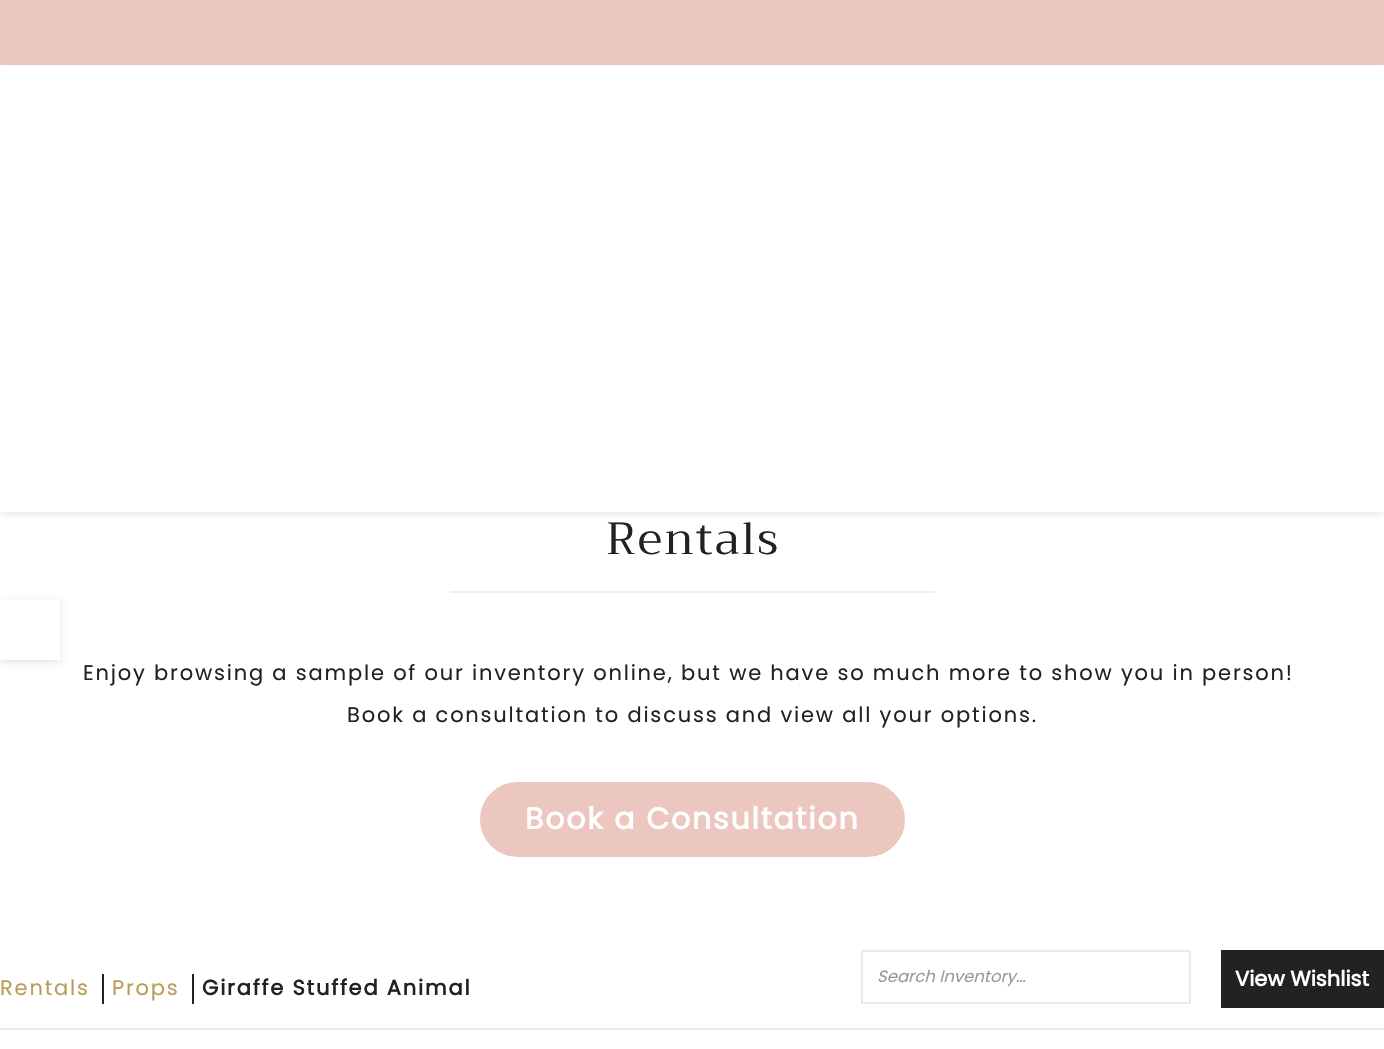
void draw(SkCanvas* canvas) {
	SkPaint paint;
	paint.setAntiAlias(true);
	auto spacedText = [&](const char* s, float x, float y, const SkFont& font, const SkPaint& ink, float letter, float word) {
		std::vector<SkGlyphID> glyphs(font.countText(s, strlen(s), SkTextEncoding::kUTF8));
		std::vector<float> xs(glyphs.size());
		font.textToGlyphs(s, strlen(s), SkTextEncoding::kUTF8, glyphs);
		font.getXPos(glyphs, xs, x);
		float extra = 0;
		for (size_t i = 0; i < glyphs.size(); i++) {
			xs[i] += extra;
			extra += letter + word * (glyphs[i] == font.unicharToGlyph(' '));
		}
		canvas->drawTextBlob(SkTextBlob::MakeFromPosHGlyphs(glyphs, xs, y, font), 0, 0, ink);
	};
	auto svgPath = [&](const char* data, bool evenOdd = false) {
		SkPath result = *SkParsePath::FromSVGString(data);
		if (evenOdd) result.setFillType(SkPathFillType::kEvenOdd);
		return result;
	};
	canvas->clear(0xffffffff);
	paint.setColor(0xffecc7c0);
	canvas->drawRect(SkRect::MakeXYWH(0, 0, 1384, 65), paint);
	paint.setColor(0x75bebebe);
	paint.setMaskFilter(SkMaskFilter::MakeBlur(kNormal_SkBlurStyle, 4));
	canvas->drawRect(SkRect::MakeXYWH(0, 66, 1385, 447), paint);
	paint.setMaskFilter(nullptr);
	paint.setColor(0xffffffff);
	canvas->drawRect(SkRect::MakeXYWH(0, 65, 1384, 447), paint);
	SkFont f1(fontMgr->matchFamilyStyle("Trirong", SkFontStyle::Normal()), 45);
	f1.setSubpixel(true);
	paint.setColor(0xff222222);
	spacedText("Rentals", 606, 554, f1, paint, 2, 0);
	paint.setColor(0xffeeeeee);
	canvas->drawRect(SkRect::MakeXYWH(450, 591, 485, 2), paint);
	SkFont f2(fontMgr->matchFamilyStyle("Poppins", SkFontStyle::Normal()), 21);
	f2.setSubpixel(true);
	paint.setColor(0xff222222);
	spacedText("Enjoy browsing a sample of our inventory online, but we have so much more to show you in person!", 83, 680, f2, paint, 1.8, 0);
	spacedText("Book a consultation to discuss and view all your options.", 347, 722, f2, paint, 1.8, 0);
	paint.setColor(0xffecc7c0);
	canvas->drawRoundRect(SkRect::MakeXYWH(478.5, 780.5, 428, 78), 39, 39, paint);
	paint.setStroke(true);
	paint.setStrokeWidth(3);
	paint.setColor(0xffffffff);
	canvas->drawRoundRect(SkRect::MakeXYWH(478.5, 780.5, 428, 78), 39, 39, paint);
	SkFont f3(fontMgr->matchFamilyStyle("Poppins", SkFontStyle::Bold()), 30);
	f3.setSubpixel(true);
	paint.setStroke(false);
	spacedText("Book a Consultation", 525, 829, f3, paint, 1.8, 0);
	paint.setColor(0xffeaeaea);
	canvas->drawRect(SkRect::MakeXYWH(0, 1028, 1384, 2), paint);
	paint.setColor(0xffb99d58);
	spacedText("Rentals", 0, 995, f2, paint, 1.8, 0);
	spacedText("Props", 112, 995, f2, paint, 1.8, 0);
	paint.setColor(0xff222222);
	canvas->drawRect(SkRect::MakeXYWH(102, 974, 2, 30), paint);
	SkFont f4(fontMgr->matchFamilyStyle("Poppins", SkFontStyle::Bold()), 21);
	f4.setSubpixel(true);
	spacedText("Giraffe Stuffed Animal", 202, 995, f4, paint, 1.8, 0);
	canvas->drawRect(SkRect::MakeXYWH(192, 974, 2, 30), paint);
	paint.setStroke(true);
	paint.setStrokeWidth(2);
	paint.setColor(0xffeaeaea);
	canvas->drawRect(SkRect::MakeXYWH(862, 951, 328, 52), paint);
	SkFont f5(fontMgr->matchFamilyStyle("Poppins", SkFontStyle::Italic()), 16.5);
	f5.setSubpixel(true);
	paint.setStroke(false);
	paint.setColor(0xff999999);
	canvas->drawString("Search Inventory…", 877, 982, f5, paint);
	paint.setColor(0xff222222);
	canvas->drawRect(SkRect::MakeXYWH(1221, 950, 163, 58), paint);
	paint.setColor(0xffffffff);
	canvas->drawString("View Wishlist", 1235, 986, f4, paint);
	canvas->save();
	canvas->clipPath(svgPath("M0 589H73V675H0ZM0 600H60V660H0Z", true), true);
	paint.setColor(0x75bebebe);
	paint.setMaskFilter(SkMaskFilter::MakeBlur(kNormal_SkBlurStyle, 4));
	canvas->drawRect(SkRect::MakeXYWH(0, 602, 60, 60), paint);
	paint.setMaskFilter(nullptr);
	canvas->restore();
}
